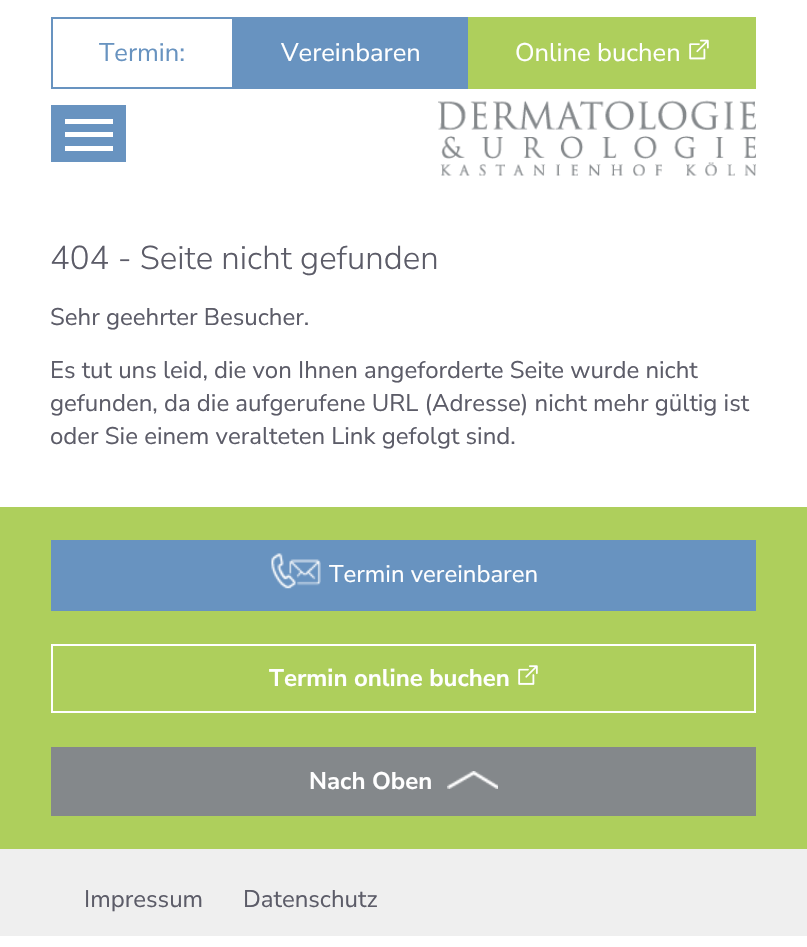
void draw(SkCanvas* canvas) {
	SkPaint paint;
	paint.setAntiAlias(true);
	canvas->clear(0xffffffff);
	paint.setStroke(true);
	paint.setStrokeWidth(2);
	paint.setColor(0xff6893c0);
	canvas->drawRect(SkRect::MakeXYWH(52, 18, 181, 70), paint);
	SkFont f1(fontMgr->matchFamilyStyle("Nunito Sans", SkFontStyle::Normal()), 25.5);
	f1.setSubpixel(true);
	paint.setStroke(false);
	canvas->drawString("Termin:", 99, 61, f1, paint);
	canvas->drawRect(SkRect::MakeXYWH(234, 17, 234, 72), paint);
	paint.setColor(0xffffffff);
	canvas->drawString("Vereinbaren", 281, 61, f1, paint);
	paint.setColor(0xffaecf5c);
	canvas->drawRect(SkRect::MakeXYWH(468, 17, 288, 72), paint);
	paint.setColor(0xffffffff);
	canvas->drawString("Online buchen", 515, 61, f1, paint);
	canvas->drawImageRect(SkImages::DeferredFromEncodedData(SkData::MakeFromFileName("img1.png")), SkRect::MakeXYWH(689, 39, 20, 21), SkSamplingOptions());
	paint.setColor(0xff6893c0);
	canvas->drawRect(SkRect::MakeXYWH(51, 105, 75, 57), paint);
	paint.setColor(0xffffffff);
	canvas->drawRect(SkRect::MakeXYWH(65, 119, 48, 5), paint);
	canvas->drawRect(SkRect::MakeXYWH(65, 132, 48, 5), paint);
	canvas->drawRect(SkRect::MakeXYWH(65, 146, 48, 5), paint);
	canvas->drawImageRect(SkImages::DeferredFromEncodedData(SkData::MakeFromFileName("img2.png")), SkRect::MakeXYWH(438, 100, 318, 76), SkSamplingOptions());
	SkFont f2(fontMgr->matchFamilyStyle("Nunito Sans", SkFontStyle(300, SkFontStyle::kNormal_Width, SkFontStyle::kUpright_Slant)), 33);
	f2.setSubpixel(true);
	paint.setColor(0xff5c5c68);
	canvas->drawString("404 - Seite nicht gefunden", 50, 269, f2, paint);
	SkFont f3(fontMgr->matchFamilyStyle("Nunito Sans", SkFontStyle::Normal()), 24);
	f3.setSubpixel(true);
	canvas->drawString("Sehr geehrter Besucher.", 50, 325, f3, paint);
	canvas->drawString("Es tut uns leid, die von Ihnen angeforderte Seite wurde nicht", 50, 378, f3, paint);
	canvas->drawString("gefunden, da die aufgerufene URL (Adresse) nicht mehr gültig ist", 50, 411, f3, paint);
	canvas->drawString("oder Sie einem veralteten Link gefolgt sind.", 50, 444, f3, paint);
	paint.setColor(0xffaecf5c);
	canvas->drawRect(SkRect::MakeXYWH(0, 507, 807, 342), paint);
	paint.setColor(0xff6893c0);
	canvas->drawRect(SkRect::MakeXYWH(51, 540, 705, 71), paint);
	canvas->drawImageRect(SkImages::DeferredFromEncodedData(SkData::MakeFromFileName("img3.png")), SkRect::MakeXYWH(271, 553, 50, 36), SkSamplingOptions());
	paint.setColor(0xffffffff);
	canvas->drawString("Termin vereinbaren", 329, 582, f3, paint);
	paint.setStroke(true);
	canvas->drawRect(SkRect::MakeXYWH(52, 645, 703, 67), paint);
	SkFont f4(fontMgr->matchFamilyStyle("Nunito Sans", SkFontStyle::Bold()), 24);
	f4.setSubpixel(true);
	paint.setStroke(false);
	canvas->drawString("Termin online buchen", 269, 686, f4, paint);
	canvas->drawImageRect(SkImages::DeferredFromEncodedData(SkData::MakeFromFileName("img4.png")), SkRect::MakeXYWH(518, 665, 20, 20), SkSamplingOptions());
	paint.setColor(0xff84888b);
	canvas->drawRect(SkRect::MakeXYWH(51, 747, 705, 69), paint);
	paint.setColor(0xffffffff);
	canvas->drawString("Nach Oben", 309, 789, f4, paint);
	canvas->drawImageRect(SkImages::DeferredFromEncodedData(SkData::MakeFromFileName("img5.png")), SkRect::MakeXYWH(447, 771, 51, 18), SkSamplingOptions());
	paint.setColor(0xffefefef);
	canvas->drawRect(SkRect::MakeXYWH(0, 849, 807, 87), paint);
	paint.setColor(0xff5c5c68);
	canvas->drawString("Impressum", 84, 907, f3, paint);
	canvas->drawString("Datenschutz", 243, 907, f3, paint);
}
